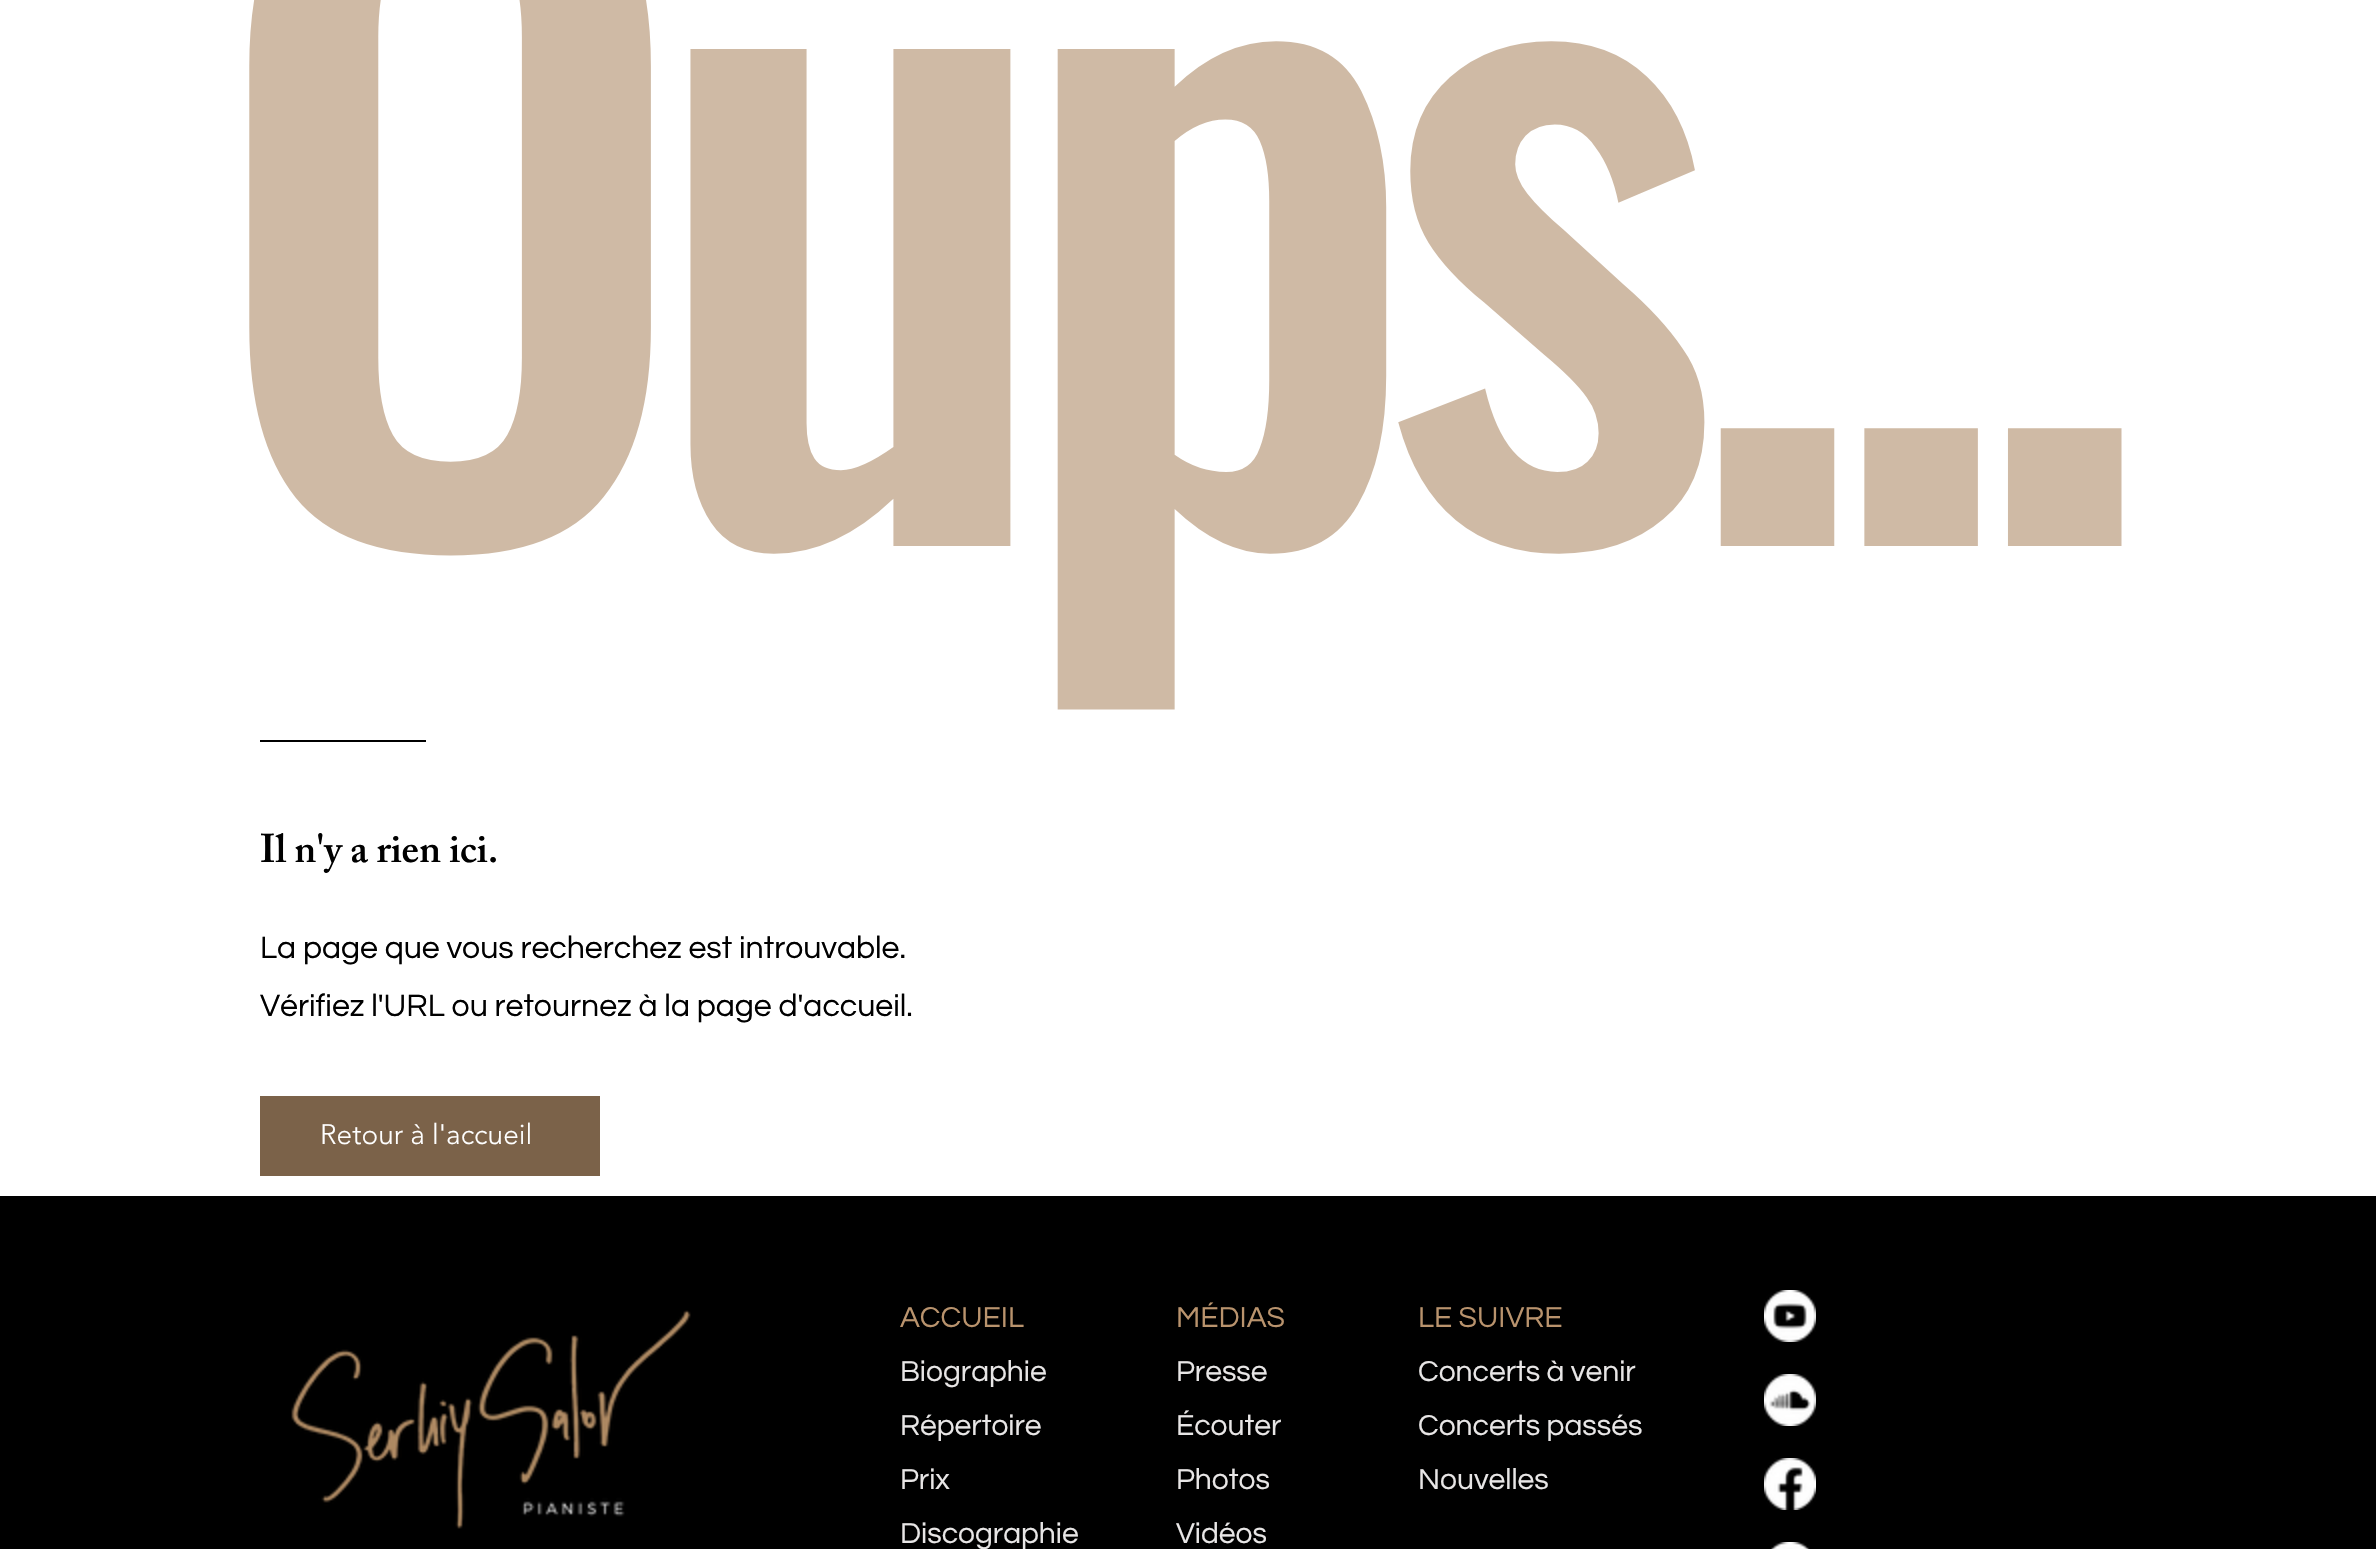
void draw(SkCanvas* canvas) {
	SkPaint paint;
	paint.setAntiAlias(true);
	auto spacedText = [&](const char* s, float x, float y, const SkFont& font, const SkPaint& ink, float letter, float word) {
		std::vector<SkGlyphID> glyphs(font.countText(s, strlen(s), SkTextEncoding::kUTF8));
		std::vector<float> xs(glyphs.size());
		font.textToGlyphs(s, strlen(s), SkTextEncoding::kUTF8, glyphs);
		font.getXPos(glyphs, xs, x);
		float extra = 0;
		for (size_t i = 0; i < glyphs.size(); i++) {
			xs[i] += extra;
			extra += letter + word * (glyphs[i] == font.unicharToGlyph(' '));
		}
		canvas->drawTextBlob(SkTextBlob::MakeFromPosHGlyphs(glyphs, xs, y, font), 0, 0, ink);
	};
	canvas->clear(0xffffffff);
	SkFont f1(fontMgr->matchFamilyStyle("Oswald", SkFontStyle(500, SkFontStyle::kNormal_Width, SkFontStyle::kUpright_Slant)), 860);
	f1.setSubpixel(true);
	paint.setColor(0xffcfbaa5);
	spacedText("Oups...", 208, 546, f1, paint, -43, 0);
	paint.setColor(0xff000000);
	canvas->drawRect(SkRect::MakeXYWH(260, 740, 166, 2), paint);
	SkFont f2(fontMgr->matchFamilyStyle("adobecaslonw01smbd", SkFontStyle(600, SkFontStyle::kNormal_Width, SkFontStyle::kUpright_Slant)), 40);
	f2.setSubpixel(true);
	canvas->drawString("Il n'y a rien ici.", 260, 862, f2, paint);
	SkFont f3(fontMgr->matchFamilyStyle("Questrial", SkFontStyle::Normal()), 32);
	f3.setSubpixel(true);
	canvas->drawString("La page que vous recherchez est introuvable.", 260, 958, f3, paint);
	canvas->drawString("Vérifiez l'URL ou retournez à la page d'accueil.", 260, 1016, f3, paint);
	paint.setColor(0xff7b6249);
	canvas->drawRect(SkRect::MakeXYWH(260, 1096, 340, 80), paint);
	SkFont f4(fontMgr->matchFamilyStyle("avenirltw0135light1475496", SkFontStyle(300, SkFontStyle::kNormal_Width, SkFontStyle::kUpright_Slant)), 28);
	f4.setSubpixel(true);
	paint.setColor(0xffffffff);
	canvas->drawString("Retour à l'accueil", 320, 1144, f4, paint);
	paint.setColor(0xff000000);
	canvas->drawRect(SkRect::MakeXYWH(0, 1196, 2376, 353), paint);
	canvas->drawImageRect(SkImages::DeferredFromEncodedData(SkData::MakeFromFileName("img1.png")), SkRect::MakeXYWH(291, 1310, 400, 219), SkSamplingOptions());
	SkFont f5(fontMgr->matchFamilyStyle("Questrial", SkFontStyle::Normal()), 30);
	f5.setSubpixel(true);
	paint.setColor(0xffb9936d);
	canvas->drawString("ACCUEIL", 900, 1327, f5, paint);
	paint.setColor(0xffe8e6e6);
	canvas->drawString("Biographie", 900, 1381, f5, paint);
	canvas->drawString("Répertoire", 900, 1435, f5, paint);
	canvas->drawString("Prix", 900, 1489, f5, paint);
	canvas->drawString("Discographie", 900, 1543, f5, paint);
	paint.setColor(0xffb9936d);
	canvas->drawString("MÉDIAS", 1176, 1327, f5, paint);
	paint.setColor(0xffe8e6e6);
	canvas->drawString("Presse", 1176, 1381, f5, paint);
	canvas->drawString("Écouter", 1176, 1435, f5, paint);
	canvas->drawString("Photos", 1176, 1489, f5, paint);
	canvas->drawString("Vidéos", 1176, 1543, f5, paint);
	paint.setColor(0xffb9936d);
	canvas->drawString("LE SUIVRE", 1418, 1327, f5, paint);
	paint.setColor(0xffe8e6e6);
	canvas->drawString("Concerts à venir", 1418, 1381, f5, paint);
	canvas->drawString("Concerts passés", 1418, 1435, f5, paint);
	canvas->drawString("Nouvelles", 1418, 1489, f5, paint);
	canvas->drawImageRect(SkImages::DeferredFromEncodedData(SkData::MakeFromFileName("img2.png")), SkRect::MakeXYWH(1764, 1290, 52, 52), SkSamplingOptions());
	canvas->drawImageRect(SkImages::DeferredFromEncodedData(SkData::MakeFromFileName("img3.png")), SkRect::MakeXYWH(1764, 1374, 52, 52), SkSamplingOptions());
	canvas->drawImageRect(SkImages::DeferredFromEncodedData(SkData::MakeFromFileName("img4.png")), SkRect::MakeXYWH(1764, 1458, 52, 52), SkSamplingOptions());
	canvas->drawImageRect(SkImages::DeferredFromEncodedData(SkData::MakeFromFileName("img5.png")), SkRect::MakeXYWH(1771, 1542, 39, 7), SkSamplingOptions());
}
